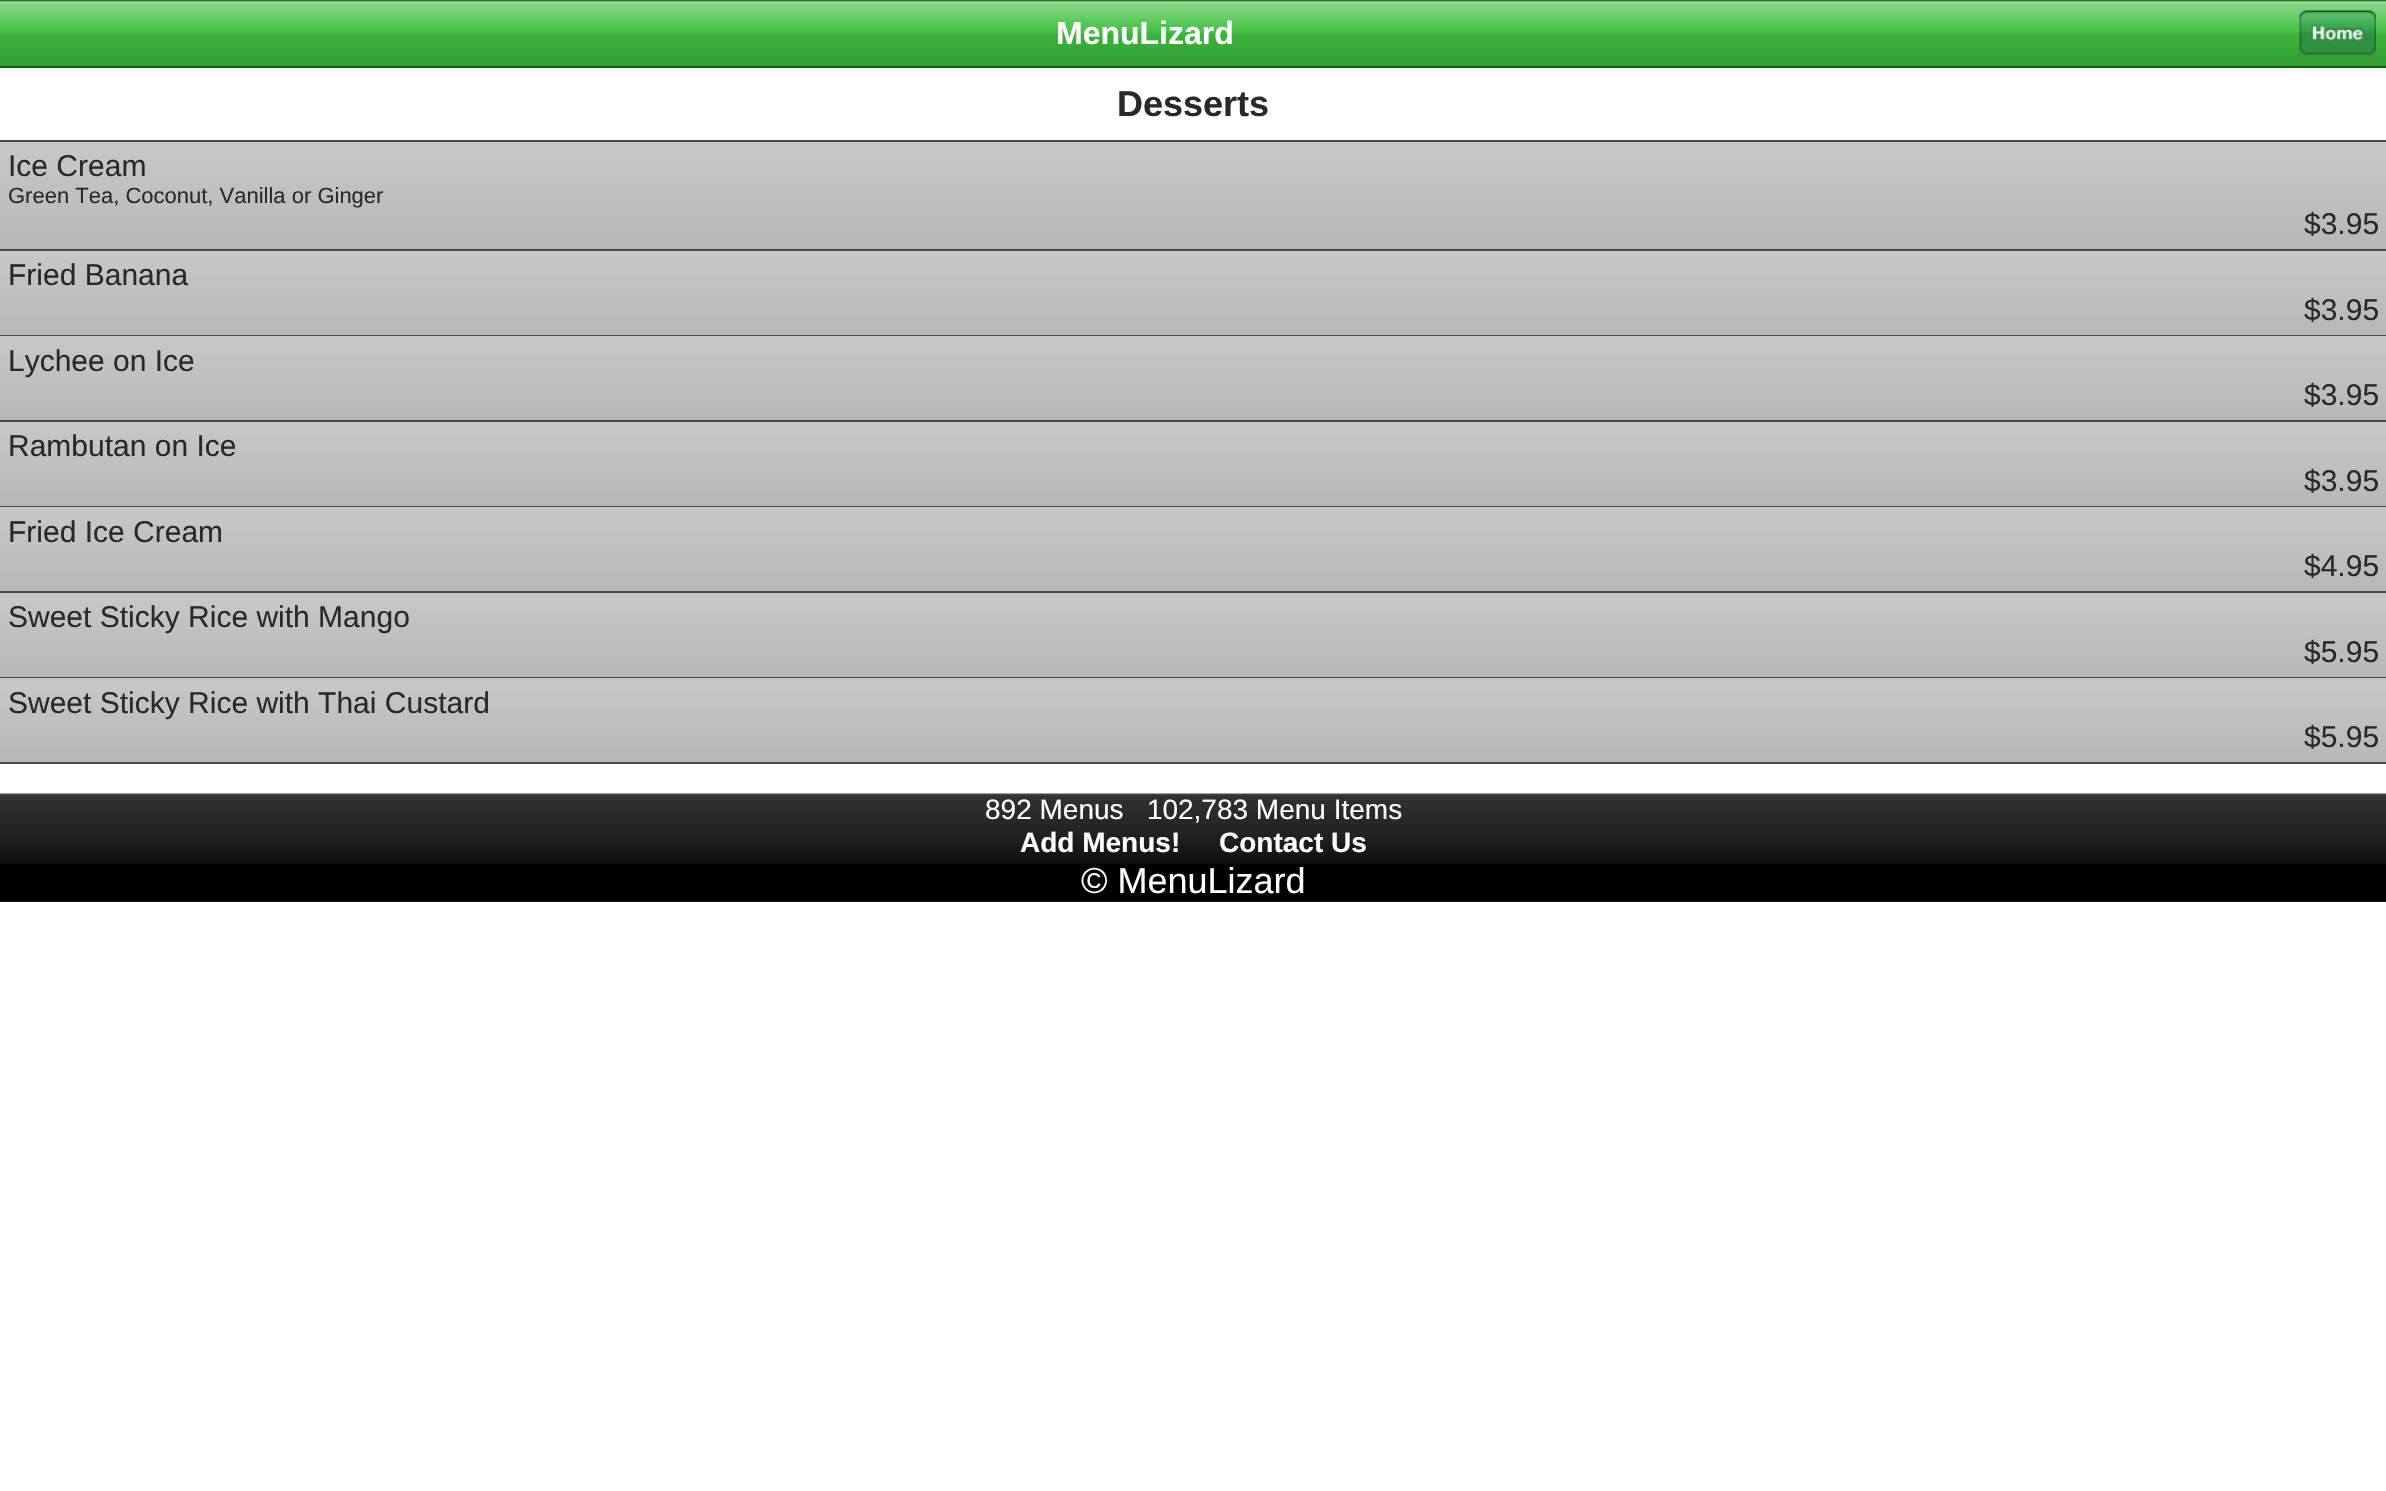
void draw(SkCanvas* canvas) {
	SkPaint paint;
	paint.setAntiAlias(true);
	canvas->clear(0xffffffff);
	canvas->drawImageRect(SkImages::DeferredFromEncodedData(SkData::MakeFromFileName("img1.png")), SkRect::MakeXYWH(0, 0, 2386, 66), SkSamplingOptions());
	paint.setColor(0xff006600);
	canvas->drawRect(SkRect::MakeXYWH(0, 66, 2386, 2), paint);
	SkFont f1(fontMgr->matchFamilyStyle("Liberation Sans", SkFontStyle::Bold()), 32);
	f1.setSubpixel(true);
	paint.setColor(0xffffffff);
	canvas->drawString("MenuLizard", 1056, 44, f1, paint);
	canvas->drawImageRect(SkImages::DeferredFromEncodedData(SkData::MakeFromFileName("img2.png")), SkRect::MakeXYWH(2299, 10, 77, 46), SkSamplingOptions());
	SkFont f2(fontMgr->matchFamilyStyle("Liberation Sans", SkFontStyle::Bold()), 36);
	f2.setSubpixel(true);
	paint.setColor(0xff292929);
	canvas->drawString("Desserts", 1117, 116, f2, paint);
	{
		const SkColor colors[] = {0xffc8c8c8, 0xffb7b7b7};
		const float stops[] = {0, 1};
		const SkPoint ends[] = {{0, 141}, {0, 249}};
		paint.setShader(SkGradientShader::MakeLinear(ends, colors, stops, 2, SkTileMode::kClamp));
		paint.setAlpha(255);
	}
	canvas->drawRect(SkRect::MakeXYWH(0, 142, 2386, 107), paint);
	paint.setShader(nullptr);
	paint.setColor(0xff494949);
	canvas->drawRect(SkRect::MakeXYWH(0, 140, 2386, 2), paint);
	canvas->drawRect(SkRect::MakeXYWH(0, 249, 2386, 2), paint);
	SkFont f3(fontMgr->matchFamilyStyle("Liberation Sans", SkFontStyle::Normal()), 30);
	f3.setSubpixel(true);
	paint.setColor(0xff292929);
	canvas->drawString("Ice Cream", 8, 176, f3, paint);
	SkFont f4(fontMgr->matchFamilyStyle("Liberation Sans", SkFontStyle::Normal()), 22);
	f4.setSubpixel(true);
	canvas->drawString("Green Tea, Coconut, Vanilla or Ginger", 8, 203, f4, paint);
	canvas->drawString("$3.95", 2304, 234, f3, paint);
	{
		const SkColor colors[] = {0xffc8c8c8, 0xffb7b7b7};
		const float stops[] = {0, 1};
		const SkPoint ends[] = {{0, 251}, {0, 335}};
		paint.setShader(SkGradientShader::MakeLinear(ends, colors, stops, 2, SkTileMode::kClamp));
		paint.setAlpha(255);
	}
	canvas->drawRect(SkRect::MakeXYWH(0, 251, 2386, 84), paint);
	paint.setShader(nullptr);
	paint.setColor(0xff494949);
	canvas->drawRect(SkRect::MakeXYWH(0, 335, 2386, 1), paint);
	paint.setColor(0xff292929);
	canvas->drawString("Fried Banana", 8, 285, f3, paint);
	canvas->drawString("$3.95", 2304, 320, f3, paint);
	{
		const SkColor colors[] = {0xffc8c8c8, 0xffb7b7b7};
		const float stops[] = {0, 1};
		const SkPoint ends[] = {{0, 336}, {0, 420}};
		paint.setShader(SkGradientShader::MakeLinear(ends, colors, stops, 2, SkTileMode::kClamp));
		paint.setAlpha(255);
	}
	canvas->drawRect(SkRect::MakeXYWH(0, 336, 2386, 84), paint);
	paint.setShader(nullptr);
	paint.setColor(0xff494949);
	canvas->drawRect(SkRect::MakeXYWH(0, 420, 2386, 2), paint);
	paint.setColor(0xff292929);
	canvas->drawString("Lychee on Ice", 8, 371, f3, paint);
	canvas->drawString("$3.95", 2304, 405, f3, paint);
	{
		const SkColor colors[] = {0xffc8c8c8, 0xffb7b7b7};
		const float stops[] = {0, 1};
		const SkPoint ends[] = {{0, 422}, {0, 506}};
		paint.setShader(SkGradientShader::MakeLinear(ends, colors, stops, 2, SkTileMode::kClamp));
		paint.setAlpha(255);
	}
	canvas->drawRect(SkRect::MakeXYWH(0, 422, 2386, 84), paint);
	paint.setShader(nullptr);
	paint.setColor(0xff494949);
	canvas->drawRect(SkRect::MakeXYWH(0, 506, 2386, 1), paint);
	paint.setColor(0xff292929);
	canvas->drawString("Rambutan on Ice", 8, 456, f3, paint);
	canvas->drawString("$3.95", 2304, 491, f3, paint);
	{
		const SkColor colors[] = {0xffc8c8c8, 0xffb7b7b7};
		const float stops[] = {0, 1};
		const SkPoint ends[] = {{0, 507}, {0, 591}};
		paint.setShader(SkGradientShader::MakeLinear(ends, colors, stops, 2, SkTileMode::kClamp));
		paint.setAlpha(255);
	}
	canvas->drawRect(SkRect::MakeXYWH(0, 507, 2386, 84), paint);
	paint.setShader(nullptr);
	paint.setColor(0xff494949);
	canvas->drawRect(SkRect::MakeXYWH(0, 591, 2386, 2), paint);
	paint.setColor(0xff292929);
	canvas->drawString("Fried Ice Cream", 8, 542, f3, paint);
	canvas->drawString("$4.95", 2304, 576, f3, paint);
	{
		const SkColor colors[] = {0xffc8c8c8, 0xffb7b7b7};
		const float stops[] = {0, 1};
		const SkPoint ends[] = {{0, 593}, {0, 677}};
		paint.setShader(SkGradientShader::MakeLinear(ends, colors, stops, 2, SkTileMode::kClamp));
		paint.setAlpha(255);
	}
	canvas->drawRect(SkRect::MakeXYWH(0, 593, 2386, 84), paint);
	paint.setShader(nullptr);
	paint.setColor(0xff494949);
	canvas->drawRect(SkRect::MakeXYWH(0, 677, 2386, 1), paint);
	paint.setColor(0xff292929);
	canvas->drawString("Sweet Sticky Rice with Mango", 8, 627, f3, paint);
	canvas->drawString("$5.95", 2304, 662, f3, paint);
	{
		const SkColor colors[] = {0xffc8c8c8, 0xffb7b7b7};
		const float stops[] = {0, 1};
		const SkPoint ends[] = {{0, 678}, {0, 762}};
		paint.setShader(SkGradientShader::MakeLinear(ends, colors, stops, 2, SkTileMode::kClamp));
		paint.setAlpha(255);
	}
	canvas->drawRect(SkRect::MakeXYWH(0, 678, 2386, 84), paint);
	paint.setShader(nullptr);
	paint.setColor(0xff494949);
	canvas->drawRect(SkRect::MakeXYWH(0, 762, 2386, 2), paint);
	paint.setColor(0xff292929);
	canvas->drawString("Sweet Sticky Rice with Thai Custard", 8, 713, f3, paint);
	canvas->drawString("$5.95", 2304, 747, f3, paint);
	canvas->drawRect(SkRect::MakeXYWH(0, 901, 2386, 1), paint);
	canvas->drawImageRect(SkImages::DeferredFromEncodedData(SkData::MakeFromFileName("img3.png")), SkRect::MakeXYWH(0, 793, 2386, 109), SkSamplingOptions());
	SkFont f5(fontMgr->matchFamilyStyle("Liberation Sans", SkFontStyle::Normal()), 28);
	f5.setSubpixel(true);
	paint.setColor(0xffffffff);
	canvas->drawString("892 Menus   102,783 Menu Items", 985, 819, f5, paint);
	SkFont f6(fontMgr->matchFamilyStyle("Liberation Sans", SkFontStyle::Bold()), 28);
	f6.setSubpixel(true);
	canvas->drawString("Add Menus!", 1020, 852, f6, paint);
	canvas->drawString("Contact Us", 1219, 852, f6, paint);
	SkFont f7(fontMgr->matchFamilyStyle("Liberation Sans", SkFontStyle::Normal()), 36);
	f7.setSubpixel(true);
	canvas->drawString("© MenuLizard", 1081, 893, f7, paint);
}
